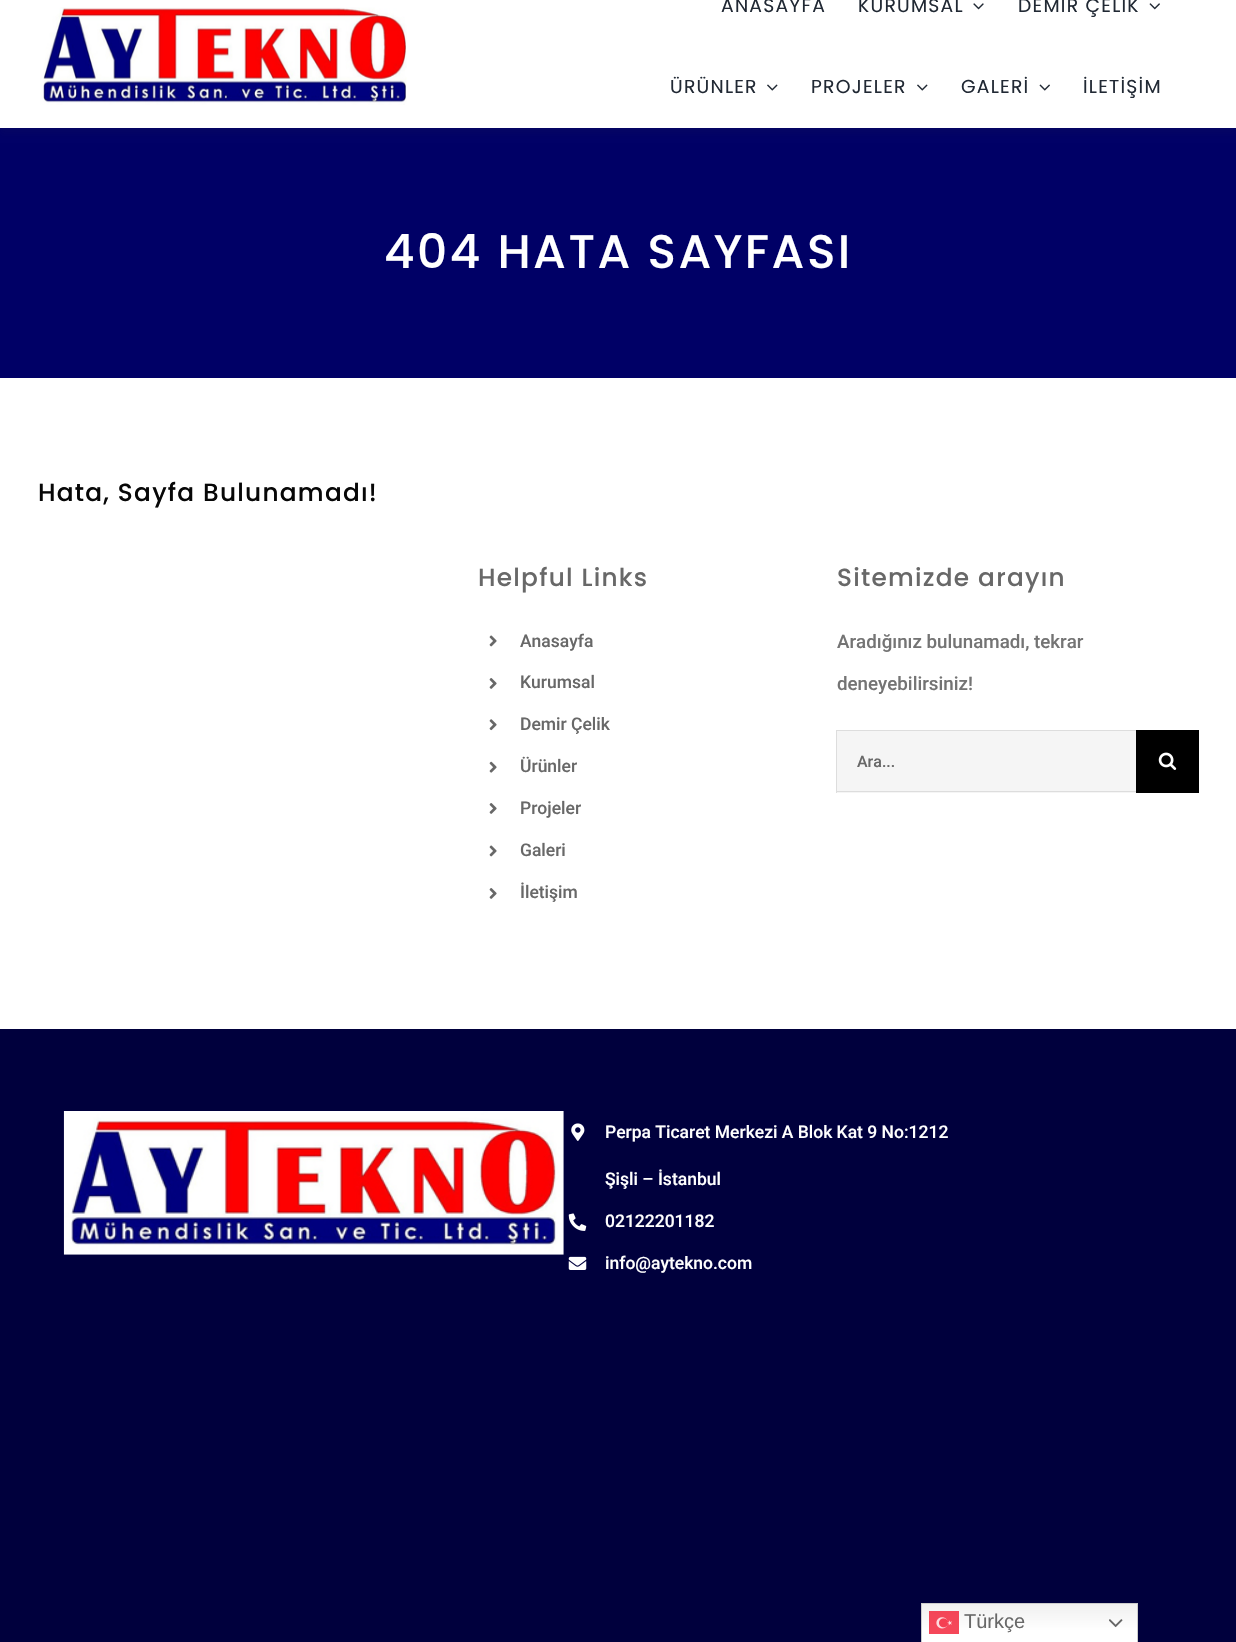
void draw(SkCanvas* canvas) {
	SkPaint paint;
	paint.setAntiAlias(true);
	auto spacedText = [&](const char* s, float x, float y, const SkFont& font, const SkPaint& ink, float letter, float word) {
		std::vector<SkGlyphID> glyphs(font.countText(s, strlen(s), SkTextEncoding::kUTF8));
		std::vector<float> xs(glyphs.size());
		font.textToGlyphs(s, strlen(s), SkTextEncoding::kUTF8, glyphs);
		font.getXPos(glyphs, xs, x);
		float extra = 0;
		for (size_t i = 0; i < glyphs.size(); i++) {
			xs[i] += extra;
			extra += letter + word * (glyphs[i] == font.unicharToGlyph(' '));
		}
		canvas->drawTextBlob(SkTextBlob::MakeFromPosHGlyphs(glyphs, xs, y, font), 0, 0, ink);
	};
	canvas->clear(0xffffffff);
	paint.setColor(0xff000066);
	canvas->drawRect(SkRect::MakeXYWH(0, 128, 1236, 250), paint);
	paint.setColor(0x12363636);
	paint.setMaskFilter(SkMaskFilter::MakeBlur(kNormal_SkBlurStyle, 3));
	canvas->drawRect(SkRect::MakeXYWH(0, 3, 1236, 131), paint);
	paint.setMaskFilter(nullptr);
	paint.setColor(0xffffffff);
	canvas->drawRect(SkRect::MakeXYWH(0, 0, 1236, 128), paint);
	canvas->drawImageRect(SkImages::DeferredFromEncodedData(SkData::MakeFromFileName("img1.png")), SkRect::MakeXYWH(40, 7, 367, 98), SkSamplingOptions());
	SkFont f1(fontMgr->matchFamilyStyle("Poppins", SkFontStyle::Normal()), 18.75);
	f1.setSubpixel(true);
	paint.setColor(0xff212934);
	spacedText("ANASAYFA", 721, 12, f1, paint, 1.25, 0);
	spacedText("KURUMSAL", 858, 12, f1, paint, 1.25, 0);
	canvas->drawImageRect(SkImages::DeferredFromEncodedData(SkData::MakeFromFileName("img2.png")), SkRect::MakeXYWH(973, 3, 11, 7), SkSamplingOptions());
	spacedText("DEMİR ÇELİK", 1018, 12, f1, paint, 1.25, 0);
	canvas->drawImageRect(SkImages::DeferredFromEncodedData(SkData::MakeFromFileName("img3.png")), SkRect::MakeXYWH(1149, 3, 11, 7), SkSamplingOptions());
	spacedText("ÜRÜNLER", 670, 93, f1, paint, 1.25, 0);
	canvas->drawImageRect(SkImages::DeferredFromEncodedData(SkData::MakeFromFileName("img4.png")), SkRect::MakeXYWH(767, 84, 11, 7), SkSamplingOptions());
	spacedText("PROJELER", 811, 93, f1, paint, 1.25, 0);
	canvas->drawImageRect(SkImages::DeferredFromEncodedData(SkData::MakeFromFileName("img4.png")), SkRect::MakeXYWH(917, 84, 11, 7), SkSamplingOptions());
	spacedText("GALERİ", 961, 93, f1, paint, 1.25, 0);
	canvas->drawImageRect(SkImages::DeferredFromEncodedData(SkData::MakeFromFileName("img5.png")), SkRect::MakeXYWH(1039, 84, 11, 7), SkSamplingOptions());
	spacedText("İLETİŞİM", 1083, 93, f1, paint, 1.25, 0);
	SkFont f2(fontMgr->matchFamilyStyle("Poppins", SkFontStyle(500, SkFontStyle::kNormal_Width, SkFontStyle::kUpright_Slant)), 47.1);
	f2.setSubpixel(true);
	paint.setColor(0xffffffff);
	spacedText("404 HATA SAYFASI", 384, 268, f2, paint, 2.5, 0);
	SkFont f3(fontMgr->matchFamilyStyle("Poppins", SkFontStyle(500, SkFontStyle::kNormal_Width, SkFontStyle::kUpright_Slant)), 24.8);
	f3.setSubpixel(true);
	paint.setColor(0xff070707);
	spacedText("Hata, Sayfa Bulunamadı!", 38, 501, f3, paint, 1.25, 0);
	paint.setColor(0xff686868);
	spacedText("Helpful Links", 478, 586, f3, paint, 1.25, 0);
	canvas->drawImageRect(SkImages::DeferredFromEncodedData(SkData::MakeFromFileName("img6.png")), SkRect::MakeXYWH(489, 635, 8, 12), SkSamplingOptions());
	SkFont f4(fontMgr->matchFamilyStyle("Roboto", SkFontStyle(500, SkFontStyle::kNormal_Width, SkFontStyle::kUpright_Slant)), 17.5);
	f4.setSubpixel(true);
	canvas->drawString("Anasayfa", 520, 647, f4, paint);
	canvas->drawImageRect(SkImages::DeferredFromEncodedData(SkData::MakeFromFileName("img7.png")), SkRect::MakeXYWH(489, 678, 8, 11), SkSamplingOptions());
	canvas->drawString("Kurumsal", 520, 688, f4, paint);
	canvas->drawImageRect(SkImages::DeferredFromEncodedData(SkData::MakeFromFileName("img8.png")), SkRect::MakeXYWH(489, 719, 8, 12), SkSamplingOptions());
	canvas->drawString("Demir Çelik", 520, 730, f4, paint);
	canvas->drawImageRect(SkImages::DeferredFromEncodedData(SkData::MakeFromFileName("img9.png")), SkRect::MakeXYWH(489, 761, 8, 12), SkSamplingOptions());
	canvas->drawString("Ürünler", 520, 772, f4, paint);
	canvas->drawImageRect(SkImages::DeferredFromEncodedData(SkData::MakeFromFileName("img7.png")), SkRect::MakeXYWH(489, 803, 8, 11), SkSamplingOptions());
	canvas->drawString("Projeler", 520, 814, f4, paint);
	canvas->drawImageRect(SkImages::DeferredFromEncodedData(SkData::MakeFromFileName("img6.png")), SkRect::MakeXYWH(489, 845, 8, 12), SkSamplingOptions());
	canvas->drawString("Galeri", 520, 856, f4, paint);
	canvas->drawImageRect(SkImages::DeferredFromEncodedData(SkData::MakeFromFileName("img7.png")), SkRect::MakeXYWH(489, 888, 8, 11), SkSamplingOptions());
	canvas->drawString("İletişim", 520, 898, f4, paint);
	spacedText("Sitemizde arayın", 837, 586, f3, paint, 1.25, 0);
	SkFont f5(fontMgr->matchFamilyStyle("Roboto", SkFontStyle(500, SkFontStyle::kNormal_Width, SkFontStyle::kUpright_Slant)), 18.75);
	f5.setSubpixel(true);
	paint.setColor(0xff747474);
	canvas->drawString("Aradığınız bulunamadı, tekrar", 837, 648, f5, paint);
	canvas->drawString("deneyebilirsiniz!", 837, 690, f5, paint);
	paint.setColor(0xfff5f5f5);
	canvas->drawRect(SkRect::MakeXYWH(837, 731, 299, 62), paint);
	paint.setColor(0xffdddddd);
	canvas->drawRect(SkRect::MakeXYWH(836, 730, 300, 1), paint);
	canvas->drawRect(SkRect::MakeXYWH(836, 791, 300, 1), paint);
	canvas->drawRect(SkRect::MakeXYWH(836, 730, 1, 63), paint);
	SkFont f6(fontMgr->matchFamilyStyle("Roboto", SkFontStyle(500, SkFontStyle::kNormal_Width, SkFontStyle::kUpright_Slant)), 16);
	f6.setSubpixel(true);
	paint.setColor(0xff686868);
	canvas->drawString("Ara...", 857, 767, f6, paint);
	paint.setColor(0xff000000);
	canvas->drawRect(SkRect::MakeXYWH(1136, 730, 63, 63), paint);
	canvas->drawImageRect(SkImages::DeferredFromEncodedData(SkData::MakeFromFileName("img10.png")), SkRect::MakeXYWH(1158, 752, 19, 18), SkSamplingOptions());
	paint.setColor(0xff00003d);
	canvas->drawRect(SkRect::MakeXYWH(0, 1029, 1236, 613), paint);
	canvas->drawImageRect(SkImages::DeferredFromEncodedData(SkData::MakeFromFileName("img11.png")), SkRect::MakeXYWH(63, 1111, 501, 144), SkSamplingOptions());
	canvas->drawImageRect(SkImages::DeferredFromEncodedData(SkData::MakeFromFileName("img12.png")), SkRect::MakeXYWH(571, 1123, 14, 18), SkSamplingOptions());
	paint.setColor(0xffffffff);
	canvas->drawString("Perpa Ticaret Merkezi A Blok Kat 9 No:1212", 605, 1138, f4, paint);
	canvas->drawString("Şişli – İstanbul", 605, 1185, f4, paint);
	canvas->drawImageRect(SkImages::DeferredFromEncodedData(SkData::MakeFromFileName("img13.png")), SkRect::MakeXYWH(568, 1213, 19, 18), SkSamplingOptions());
	canvas->drawString("02122201182", 605, 1227, f4, paint);
	canvas->drawImageRect(SkImages::DeferredFromEncodedData(SkData::MakeFromFileName("img14.png")), SkRect::MakeXYWH(568, 1256, 19, 14), SkSamplingOptions());
	canvas->drawString("info@aytekno.com", 605, 1269, f4, paint);
	{
		const SkColor colors[] = {0xffefefef, 0xffffffff};
		const float stops[] = {0, 0.7};
		const SkPoint ends[] = {{1029, 1603}, {1029, 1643}};
		paint.setShader(SkGradientShader::MakeLinear(ends, colors, stops, 2, SkTileMode::kClamp));
		paint.setAlpha(255);
	}
	canvas->drawRect(SkRect::MakeXYWH(922, 1604, 215, 38), paint);
	paint.setStroke(true);
	paint.setStrokeWidth(1);
	paint.setShader(nullptr);
	paint.setColor(0xffcccccc);
	canvas->drawRect(SkRect::MakeXYWH(921.5, 1603.5, 216, 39), paint);
	canvas->drawImageRect(SkImages::DeferredFromEncodedData(SkData::MakeFromFileName("img15.png")), SkRect::MakeXYWH(929, 1611, 30, 23), SkSamplingOptions());
	SkFont f7(fontMgr->matchFamilyStyle("Liberation Sans", SkFontStyle::Normal()), 20);
	f7.setSubpixel(true);
	paint.setStroke(false);
	paint.setColor(0xff686868);
	canvas->drawString("Türkçe", 964, 1628, f7, paint);
	canvas->drawImageRect(SkImages::DeferredFromEncodedData(SkData::MakeFromFileName("img16.png")), SkRect::MakeXYWH(1109, 1619, 14, 9), SkSamplingOptions());
}
